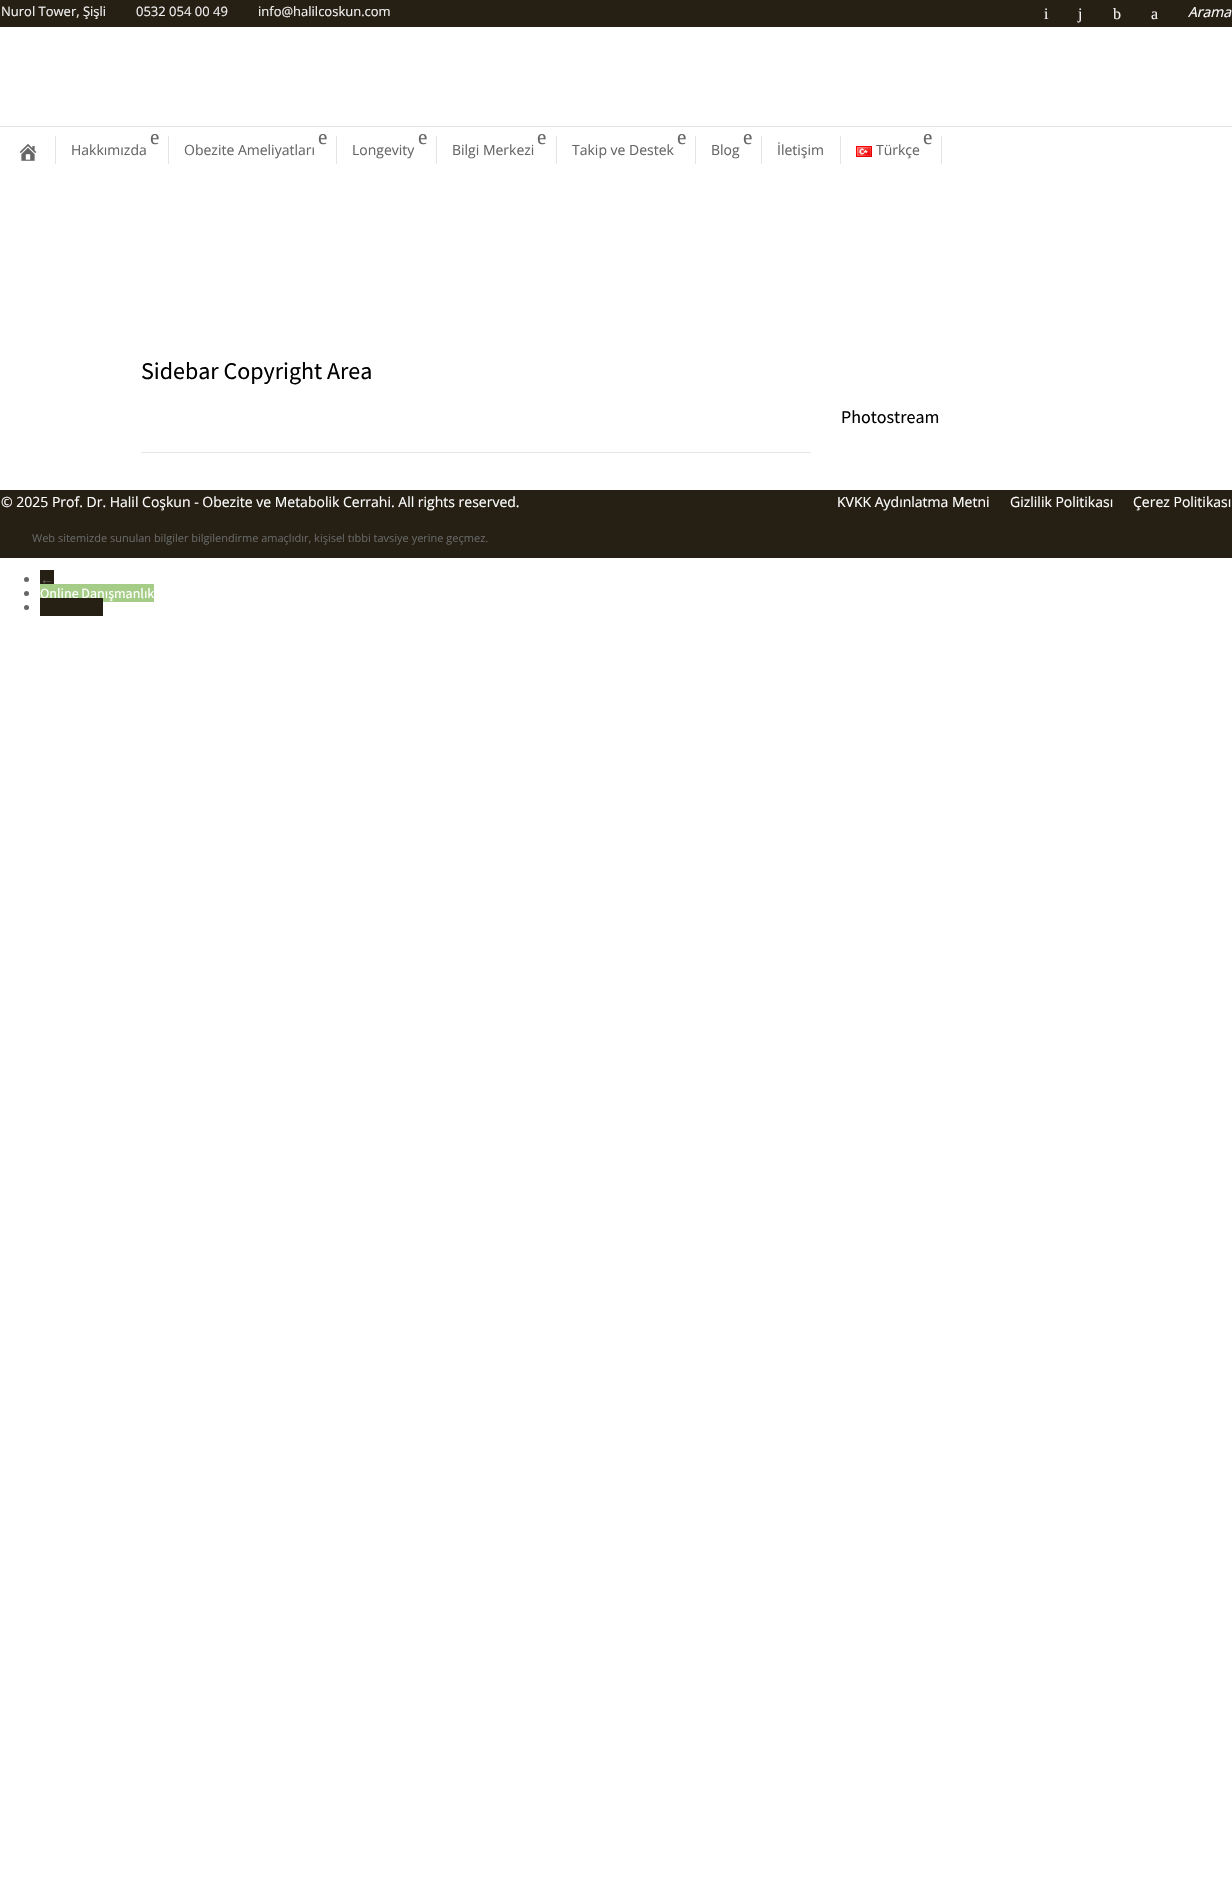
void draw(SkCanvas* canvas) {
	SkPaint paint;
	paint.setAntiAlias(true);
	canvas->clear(0xffffffff);
	paint.setColor(0xff262014);
	canvas->drawRect(SkRect::MakeXYWH(0, 0, 1232, 27), paint);
	SkFont f1(fontMgr->matchFamilyStyle("Open Sans", SkFontStyle::Normal()), 13);
	f1.setSubpixel(true);
	paint.setColor(0xfff0f0f0);
	canvas->drawString("Nurol Tower, Şişli", 1, 16, f1, paint);
	canvas->drawString("0532 054 00 49", 136, 16, f1, paint);
	canvas->drawString("info@halilcoskun.com", 258, 16, f1, paint);
	SkFont f2(fontMgr->matchFamilyStyle("Liberation Serif", SkFontStyle::Normal()), 16);
	f2.setSubpixel(true);
	canvas->drawString("i", 1044, 19, f2, paint);
	canvas->drawString("j", 1078, 19, f2, paint);
	canvas->drawString("b", 1113, 19, f2, paint);
	canvas->drawString("a", 1151, 19, f2, paint);
	SkFont f3(fontMgr->matchFamilyStyle("Open Sans", SkFontStyle::Italic()), 14);
	f3.setSubpixel(true);
	paint.setColor(0xffffffff);
	canvas->drawString("Arama", 1188, 17, f3, paint);
	paint.setColor(0xffe5e5e5);
	canvas->drawRect(SkRect::MakeXYWH(0, 126, 1232, 1), paint);
	canvas->drawImageRect(SkImages::DeferredFromEncodedData(SkData::MakeFromFileName("img1.png")), SkRect::MakeXYWH(19, 143, 18, 18), SkSamplingOptions());
	canvas->drawRect(SkRect::MakeXYWH(55, 136, 1, 28), paint);
	SkFont f4(fontMgr->matchFamilyStyle("Liberation Serif", SkFontStyle::Normal()), 21);
	f4.setSubpixel(true);
	paint.setColor(0xff666666);
	canvas->drawString("e", 150, 144, f4, paint);
	SkFont f5(fontMgr->matchFamilyStyle("Open Sans", SkFontStyle::Normal()), 14);
	f5.setSubpixel(true);
	canvas->drawString("Hakkımızda", 71, 155, f5, paint);
	paint.setColor(0xffe5e5e5);
	canvas->drawRect(SkRect::MakeXYWH(168, 136, 1, 28), paint);
	paint.setColor(0xff666666);
	canvas->drawString("e", 318, 144, f4, paint);
	canvas->drawString("Obezite Ameliyatları", 184, 155, f5, paint);
	paint.setColor(0xffe5e5e5);
	canvas->drawRect(SkRect::MakeXYWH(336, 136, 1, 28), paint);
	paint.setColor(0xff666666);
	canvas->drawString("e", 418, 144, f4, paint);
	canvas->drawString("Longevity", 352, 155, f5, paint);
	paint.setColor(0xffe5e5e5);
	canvas->drawRect(SkRect::MakeXYWH(436, 136, 1, 28), paint);
	paint.setColor(0xff666666);
	canvas->drawString("e", 537, 144, f4, paint);
	canvas->drawString("Bilgi Merkezi", 452, 155, f5, paint);
	paint.setColor(0xffe5e5e5);
	canvas->drawRect(SkRect::MakeXYWH(556, 136, 1, 28), paint);
	paint.setColor(0xff666666);
	canvas->drawString("e", 677, 144, f4, paint);
	canvas->drawString("Takip ve Destek", 572, 155, f5, paint);
	paint.setColor(0xffe5e5e5);
	canvas->drawRect(SkRect::MakeXYWH(695, 136, 1, 28), paint);
	paint.setColor(0xff666666);
	canvas->drawString("e", 743, 144, f4, paint);
	canvas->drawString("Blog", 711, 155, f5, paint);
	paint.setColor(0xffe5e5e5);
	canvas->drawRect(SkRect::MakeXYWH(761, 136, 1, 28), paint);
	paint.setColor(0xff666666);
	canvas->drawString("İletişim", 777, 155, f5, paint);
	paint.setColor(0xffe5e5e5);
	canvas->drawRect(SkRect::MakeXYWH(840, 136, 1, 28), paint);
	paint.setColor(0xff666666);
	canvas->drawString("e", 923, 144, f4, paint);
	canvas->drawImageRect(SkImages::DeferredFromEncodedData(SkData::MakeFromFileName("img2.png")), SkRect::MakeXYWH(856, 146, 16, 11), SkSamplingOptions());
	canvas->drawString("Türkçe", 876, 155, f5, paint);
	paint.setColor(0xffe5e5e5);
	canvas->drawRect(SkRect::MakeXYWH(941, 136, 1, 28), paint);
	canvas->drawRect(SkRect::MakeXYWH(141, 452, 670, 1), paint);
	SkFont f6(fontMgr->matchFamilyStyle("Source Sans Pro", SkFontStyle::Normal()), 24);
	f6.setSubpixel(true);
	paint.setColor(0xff000000);
	canvas->drawString("Sidebar Copyright Area", 141, 379, f6, paint);
	SkFont f7(fontMgr->matchFamilyStyle("Source Sans Pro", SkFontStyle::Normal()), 18);
	f7.setSubpixel(true);
	canvas->drawString("Photostream", 841, 423, f7, paint);
	paint.setColor(0xff262014);
	canvas->drawRect(SkRect::MakeXYWH(0, 490, 1232, 68), paint);
	paint.setColor(0xffffffff);
	canvas->drawString("© 2025 Prof. Dr. Halil Coşkun - Obezite ve Metabolik Cerrahi. All rights reserved.", 1, 507, f5, paint);
	SkFont f8(fontMgr->matchFamilyStyle("Open Sans", SkFontStyle::Normal()), 11);
	f8.setSubpixel(true);
	paint.setColor(0xff666666);
	canvas->drawString("Web sitemizde sunulan bilgiler bilgilendirme amaçlıdır, kişisel tıbbi tavsiye yerine geçmez.", 32, 542, f8, paint);
	paint.setColor(0xffffffff);
	canvas->drawString("KVKK Aydınlatma Metni", 837, 507, f5, paint);
	canvas->drawString("Gizlilik Politikası", 1010, 507, f5, paint);
	canvas->drawString("Çerez Politikası", 1133, 507, f5, paint);
	paint.setColor(0xff666666);
	canvas->drawCircle(26.5, 579.5, 2.5, paint);
	paint.setColor(0xff262014);
	canvas->drawRect(SkRect::MakeXYWH(40, 570, 14, 14), paint);
	SkFont f9(fontMgr->matchFamilyStyle("Liberation Serif", SkFontStyle::Normal()), 14);
	f9.setSubpixel(true);
	paint.setColor(0xff666666);
	canvas->drawString("←", 40, 584, f9, paint);
	canvas->drawCircle(26.5, 593.5, 2.5, paint);
	paint.setColor(0xffa6cd88);
	canvas->drawRect(SkRect::MakeXYWH(40, 584, 114, 18), paint);
	SkFont f10(fontMgr->matchFamilyStyle("Source Sans Pro", SkFontStyle::Normal()), 14);
	f10.setSubpixel(true);
	paint.setColor(0xffffffff);
	canvas->drawString("Online Danışmanlık", 40, 598, f10, paint);
	paint.setColor(0xff666666);
	canvas->drawCircle(26.5, 607.5, 2.5, paint);
	paint.setColor(0xff262014);
	canvas->drawRect(SkRect::MakeXYWH(40, 598, 63, 18), paint);
}
